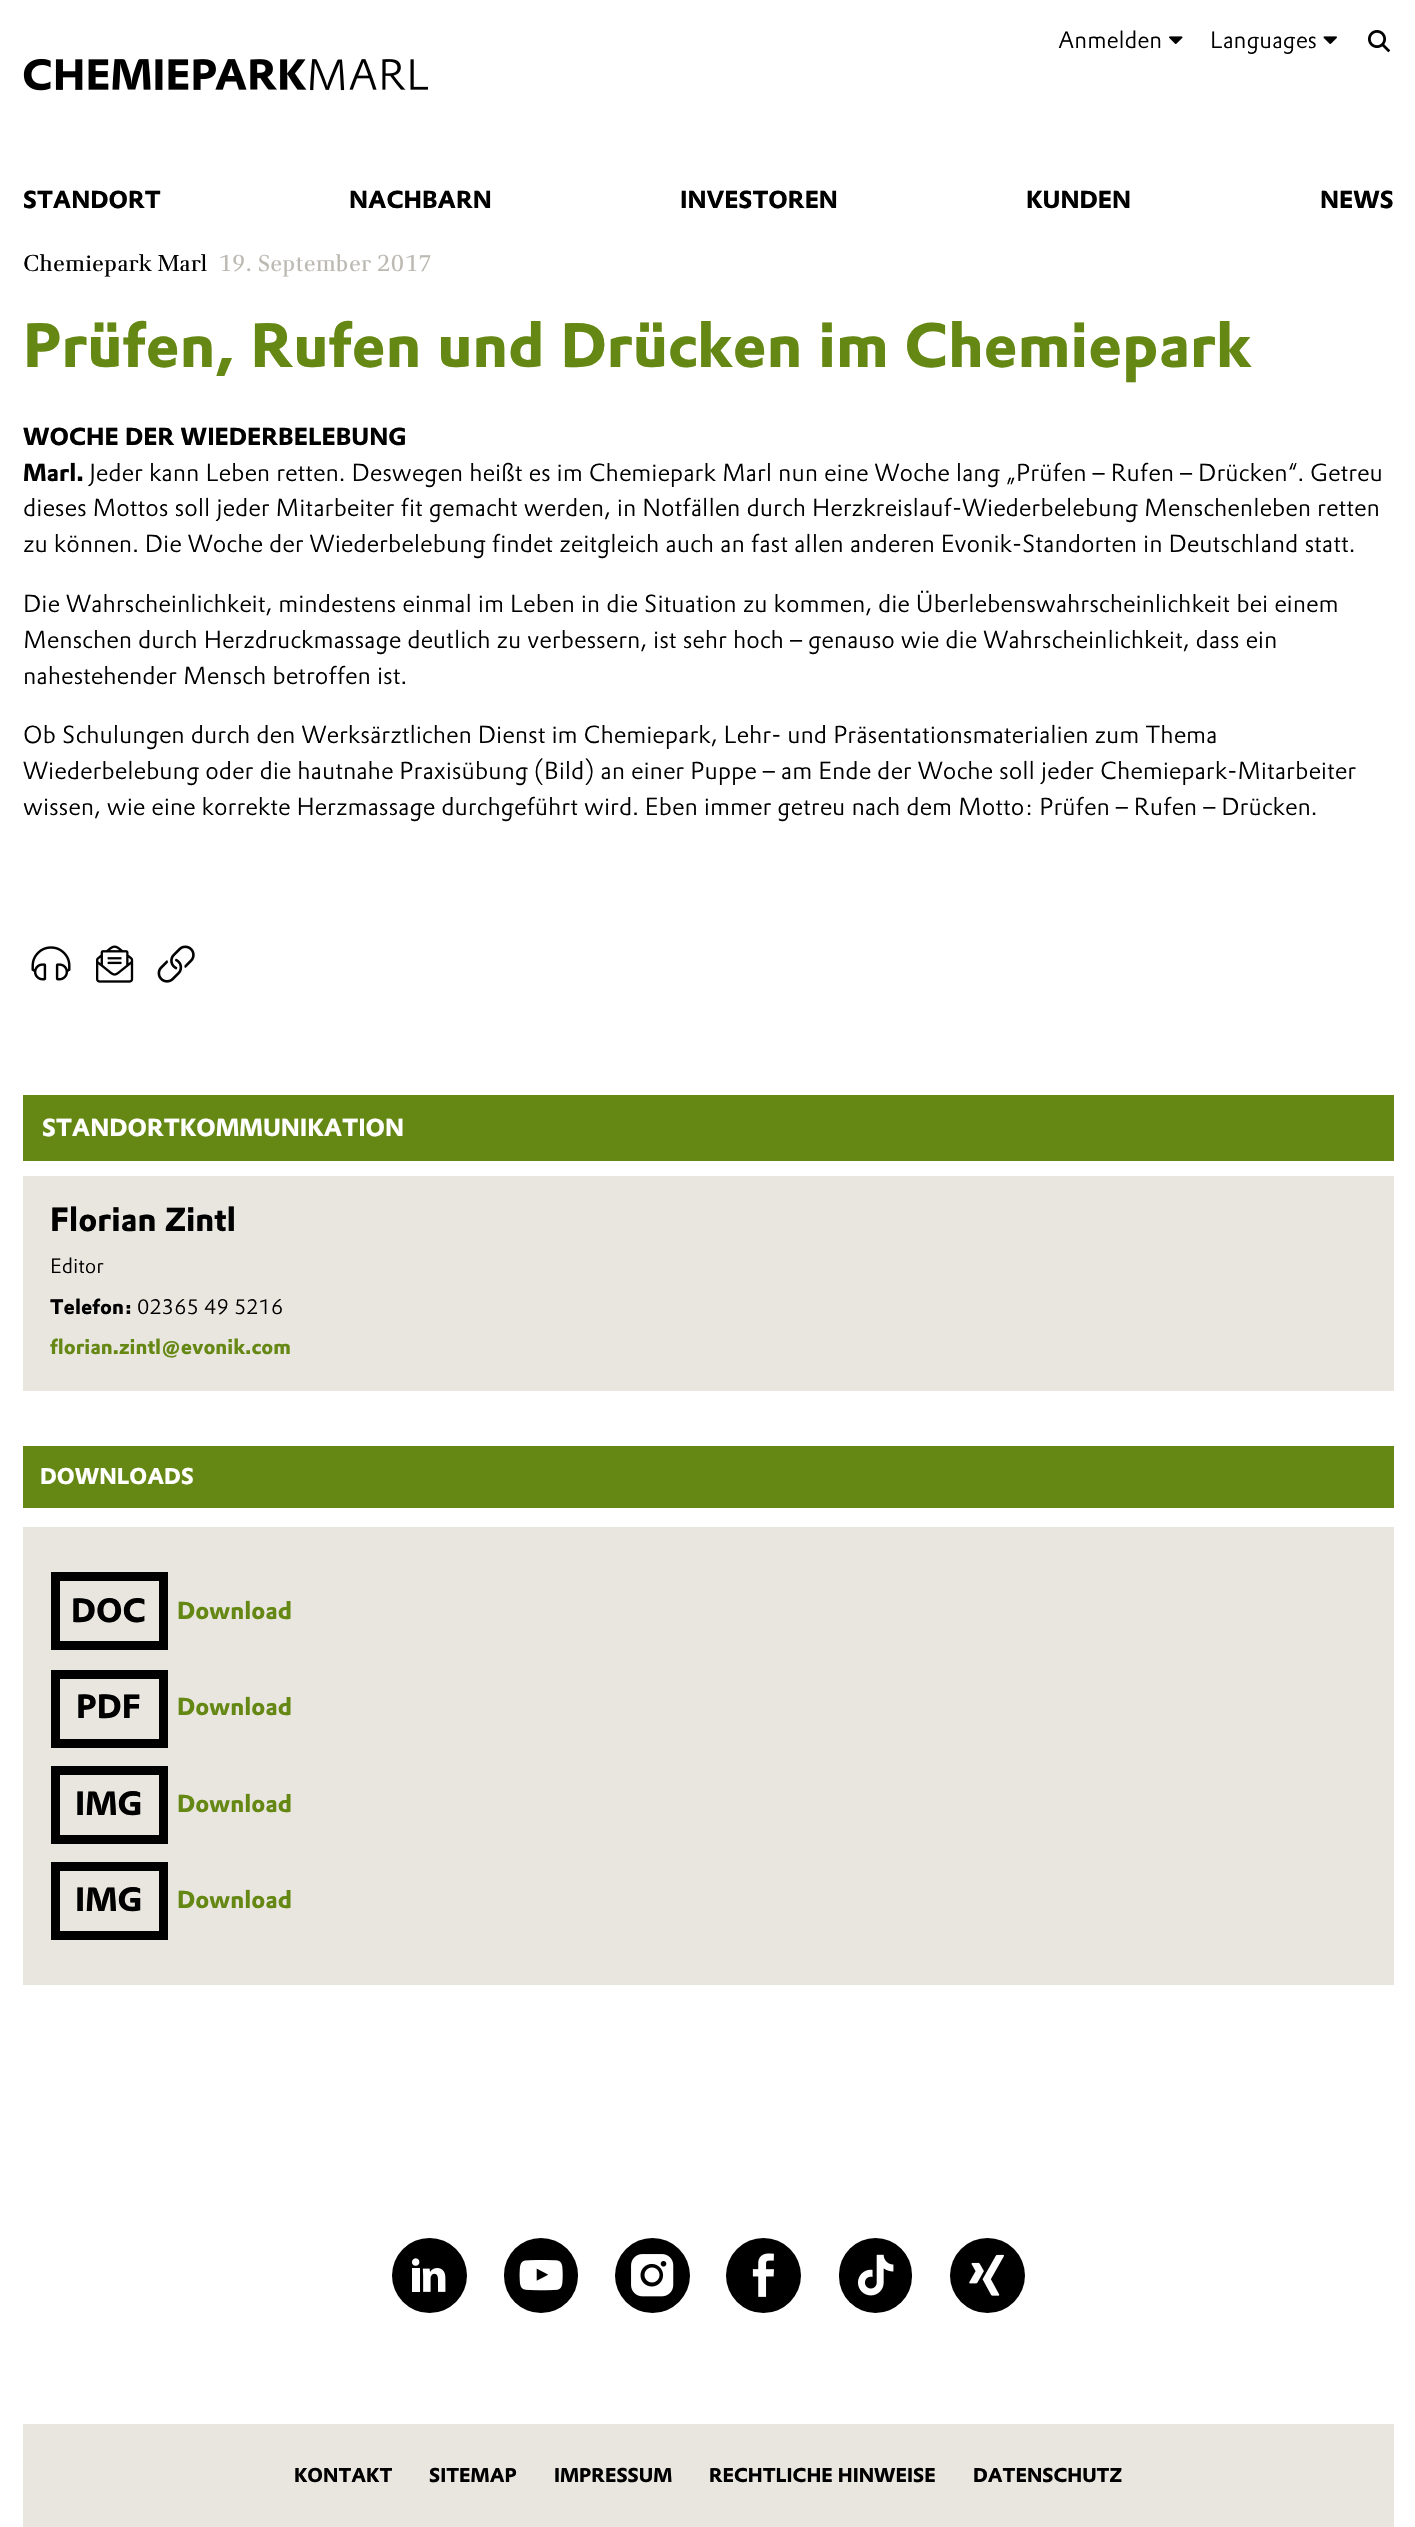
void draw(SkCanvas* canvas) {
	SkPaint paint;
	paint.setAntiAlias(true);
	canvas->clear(0xffffffff);
	SkFont f1(fontMgr->matchFamilyStyle("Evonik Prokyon", SkFontStyle(300, SkFontStyle::kNormal_Width, SkFontStyle::kUpright_Slant)), 23.25);
	f1.setSubpixel(true);
	paint.setColor(0xff000000);
	canvas->drawString("Anmelden", 1058, 48, f1, paint);
	canvas->drawImageRect(SkImages::DeferredFromEncodedData(SkData::MakeFromFileName("img1.png")), SkRect::MakeXYWH(1169, 36, 14, 8), SkSamplingOptions());
	canvas->drawString("Languages", 1210, 48, f1, paint);
	canvas->drawImageRect(SkImages::DeferredFromEncodedData(SkData::MakeFromFileName("img2.png")), SkRect::MakeXYWH(1323, 36, 14, 8), SkSamplingOptions());
	canvas->drawImageRect(SkImages::DeferredFromEncodedData(SkData::MakeFromFileName("img3.png")), SkRect::MakeXYWH(1368, 30, 23, 23), SkSamplingOptions());
	canvas->drawImageRect(SkImages::DeferredFromEncodedData(SkData::MakeFromFileName("img4.png")), SkRect::MakeXYWH(23, 58, 405, 33), SkSamplingOptions());
	SkFont f2(fontMgr->matchFamilyStyle("Evonik Prokyon", SkFontStyle::Bold()), 24.15);
	f2.setSubpixel(true);
	canvas->drawString("STANDORT", 23, 208, f2, paint);
	canvas->drawString("NACHBARN", 349, 208, f2, paint);
	canvas->drawString("INVESTOREN", 680, 208, f2, paint);
	canvas->drawString("KUNDEN", 1026, 208, f2, paint);
	canvas->drawString("NEWS", 1320, 208, f2, paint);
	SkFont f3(fontMgr->matchFamilyStyle("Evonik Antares", SkFontStyle::Normal()), 22.25);
	f3.setSubpixel(true);
	canvas->drawString("Chemiepark Marl", 23, 271, f3, paint);
	paint.setColor(0xffbcb9b2);
	canvas->drawString("19. September 2017", 218, 271, f3, paint);
	SkFont f4(fontMgr->matchFamilyStyle("Evonik Prokyon", SkFontStyle::Bold()), 61.3);
	f4.setSubpixel(true);
	paint.setColor(0xff658713);
	canvas->drawString("Prüfen, Rufen und Drücken im Chemiepark", 23, 367, f4, paint);
	paint.setColor(0xff000000);
	canvas->drawString("WOCHE DER WIEDERBELEBUNG", 23, 445, f2, paint);
	canvas->drawString("Marl.", 23, 481, f2, paint);
	SkFont f5(fontMgr->matchFamilyStyle("Evonik Prokyon", SkFontStyle(300, SkFontStyle::kNormal_Width, SkFontStyle::kUpright_Slant)), 24.15);
	f5.setSubpixel(true);
	canvas->drawString("Jeder kann Leben retten. Deswegen heißt es im Chemiepark Marl nun eine Woche lang „Prüfen – Rufen – Drücken“. Getreu", 89, 481, f5, paint);
	canvas->drawString("dieses Mottos soll jeder Mitarbeiter fit gemacht werden, in Notfällen durch Herzkreislauf-Wiederbelebung Menschenleben retten", 23, 516, f5, paint);
	canvas->drawString("zu können. Die Woche der Wiederbelebung findet zeitgleich auch an fast allen anderen Evonik-Standorten in Deutschland statt.", 23, 552, f5, paint);
	canvas->drawString("Die Wahrscheinlichkeit, mindestens einmal im Leben in die Situation zu kommen, die Überlebenswahrscheinlichkeit bei einem", 23, 612, f5, paint);
	canvas->drawString("Menschen durch Herzdruckmassage deutlich zu verbessern, ist sehr hoch – genauso wie die Wahrscheinlichkeit, dass ein", 23, 648, f5, paint);
	canvas->drawString("nahestehender Mensch betroffen ist.", 23, 684, f5, paint);
	canvas->drawString("Ob Schulungen durch den Werksärztlichen Dienst im Chemiepark, Lehr- und Präsentationsmaterialien zum Thema", 23, 743, f5, paint);
	canvas->drawString("Wiederbelebung oder die hautnahe Praxisübung (Bild) an einer Puppe – am Ende der Woche soll jeder Chemiepark-Mitarbeiter", 23, 779, f5, paint);
	canvas->drawString("wissen, wie eine korrekte Herzmassage durchgeführt wird. Eben immer getreu nach dem Motto: Prüfen – Rufen – Drücken.", 23, 815, f5, paint);
	canvas->drawImageRect(SkImages::DeferredFromEncodedData(SkData::MakeFromFileName("img5.png")), SkRect::MakeXYWH(31, 946, 40, 35), SkSamplingOptions());
	canvas->drawImageRect(SkImages::DeferredFromEncodedData(SkData::MakeFromFileName("img6.png")), SkRect::MakeXYWH(96, 945, 38, 38), SkSamplingOptions());
	canvas->drawImageRect(SkImages::DeferredFromEncodedData(SkData::MakeFromFileName("img7.png")), SkRect::MakeXYWH(157, 945, 38, 38), SkSamplingOptions());
	paint.setColor(0xff658713);
	canvas->drawRect(SkRect::MakeXYWH(23, 1095, 1371, 66), paint);
	paint.setColor(0xffffffff);
	canvas->drawString("STANDORTKOMMUNIKATION", 42, 1136, f2, paint);
	paint.setColor(0xffe9e6df);
	canvas->drawRect(SkRect::MakeXYWH(23, 1176, 1371, 215), paint);
	SkFont f6(fontMgr->matchFamilyStyle("Evonik Prokyon", SkFontStyle::Bold()), 32.75);
	f6.setSubpixel(true);
	paint.setColor(0xff000000);
	canvas->drawString("Florian Zintl", 50, 1231, f6, paint);
	SkFont f7(fontMgr->matchFamilyStyle("Evonik Prokyon", SkFontStyle(300, SkFontStyle::kNormal_Width, SkFontStyle::kUpright_Slant)), 20.5);
	f7.setSubpixel(true);
	canvas->drawString("Editor", 50, 1273, f7, paint);
	SkFont f8(fontMgr->matchFamilyStyle("Evonik Prokyon", SkFontStyle::Bold()), 20.5);
	f8.setSubpixel(true);
	canvas->drawString("Telefon:", 50, 1314, f8, paint);
	canvas->drawString("02365 49 5216", 137, 1314, f7, paint);
	paint.setColor(0xff658713);
	canvas->drawString("florian.zintl@evonik.com", 50, 1354, f8, paint);
	canvas->drawRect(SkRect::MakeXYWH(23, 1446, 1371, 62), paint);
	SkFont f9(fontMgr->matchFamilyStyle("Evonik Prokyon", SkFontStyle::Bold()), 22.25);
	f9.setSubpixel(true);
	paint.setColor(0xffffffff);
	canvas->drawString("DOWNLOADS", 40, 1484, f9, paint);
	paint.setColor(0xffe9e6df);
	canvas->drawRect(SkRect::MakeXYWH(23, 1527, 1371, 458), paint);
	paint.setStroke(true);
	paint.setStrokeWidth(9);
	paint.setColor(0xff000000);
	canvas->drawRect(SkRect::MakeXYWH(55.5, 1576.5, 108, 69), paint);
	SkFont f10(fontMgr->matchFamilyStyle("Evonik Prokyon", SkFontStyle::Bold()), 33);
	f10.setSubpixel(true);
	paint.setStroke(false);
	canvas->drawString("DOC", 71, 1622, f10, paint);
	paint.setColor(0xff658713);
	canvas->drawString("Download", 177, 1619, f2, paint);
	paint.setStroke(true);
	paint.setColor(0xff000000);
	canvas->drawRect(SkRect::MakeXYWH(55.5, 1674.5, 108, 69), paint);
	paint.setStroke(false);
	canvas->drawString("PDF", 76, 1718, f10, paint);
	paint.setColor(0xff658713);
	canvas->drawString("Download", 177, 1715, f2, paint);
	paint.setStroke(true);
	paint.setColor(0xff000000);
	canvas->drawRect(SkRect::MakeXYWH(55.5, 1770.5, 108, 69), paint);
	paint.setStroke(false);
	canvas->drawString("IMG", 75, 1815, f10, paint);
	paint.setColor(0xff658713);
	canvas->drawString("Download", 177, 1812, f2, paint);
	paint.setStroke(true);
	paint.setColor(0xff000000);
	canvas->drawRect(SkRect::MakeXYWH(55.5, 1866.5, 108, 69), paint);
	paint.setStroke(false);
	canvas->drawString("IMG", 75, 1911, f10, paint);
	paint.setColor(0xff658713);
	canvas->drawString("Download", 177, 1908, f2, paint);
	paint.setColor(0xff000000);
	canvas->drawCircle(429.5, 2275.5, 37.5, paint);
	canvas->drawImageRect(SkImages::DeferredFromEncodedData(SkData::MakeFromFileName("img8.png")), SkRect::MakeXYWH(411, 2258, 35, 34), SkSamplingOptions());
	canvas->drawRoundRect(SkRect::MakeXYWH(504, 2238, 74, 75), 37, 37, paint);
	canvas->drawImageRect(SkImages::DeferredFromEncodedData(SkData::MakeFromFileName("img9.png")), SkRect::MakeXYWH(519, 2260, 44, 31), SkSamplingOptions());
	canvas->drawCircle(652.5, 2275.5, 37.5, paint);
	canvas->drawImageRect(SkImages::DeferredFromEncodedData(SkData::MakeFromFileName("img10.png")), SkRect::MakeXYWH(631, 2254, 43, 43), SkSamplingOptions());
	canvas->drawCircle(763.5, 2275.5, 37.5, paint);
	canvas->drawImageRect(SkImages::DeferredFromEncodedData(SkData::MakeFromFileName("img11.png")), SkRect::MakeXYWH(752, 2253, 22, 44), SkSamplingOptions());
	canvas->drawRoundRect(SkRect::MakeXYWH(839, 2238, 73, 75), 36.5, 36.5, paint);
	canvas->drawImageRect(SkImages::DeferredFromEncodedData(SkData::MakeFromFileName("img12.png")), SkRect::MakeXYWH(858, 2254, 36, 42), SkSamplingOptions());
	canvas->drawCircle(987.5, 2275.5, 37.5, paint);
	canvas->drawImageRect(SkImages::DeferredFromEncodedData(SkData::MakeFromFileName("img13.png")), SkRect::MakeXYWH(969, 2254, 35, 42), SkSamplingOptions());
	paint.setColor(0xffe9e6df);
	canvas->drawRect(SkRect::MakeXYWH(23, 2424, 1371, 103), paint);
	SkFont f11(fontMgr->matchFamilyStyle("Evonik Prokyon", SkFontStyle::Bold()), 19.5);
	f11.setSubpixel(true);
	paint.setColor(0xff000000);
	canvas->drawString("KONTAKT", 294, 2482, f11, paint);
	canvas->drawString("SITEMAP", 429, 2482, f11, paint);
	canvas->drawString("IMPRESSUM", 554, 2482, f11, paint);
	canvas->drawString("RECHTLICHE HINWEISE", 709, 2482, f11, paint);
	canvas->drawString("DATENSCHUTZ", 973, 2482, f11, paint);
}
